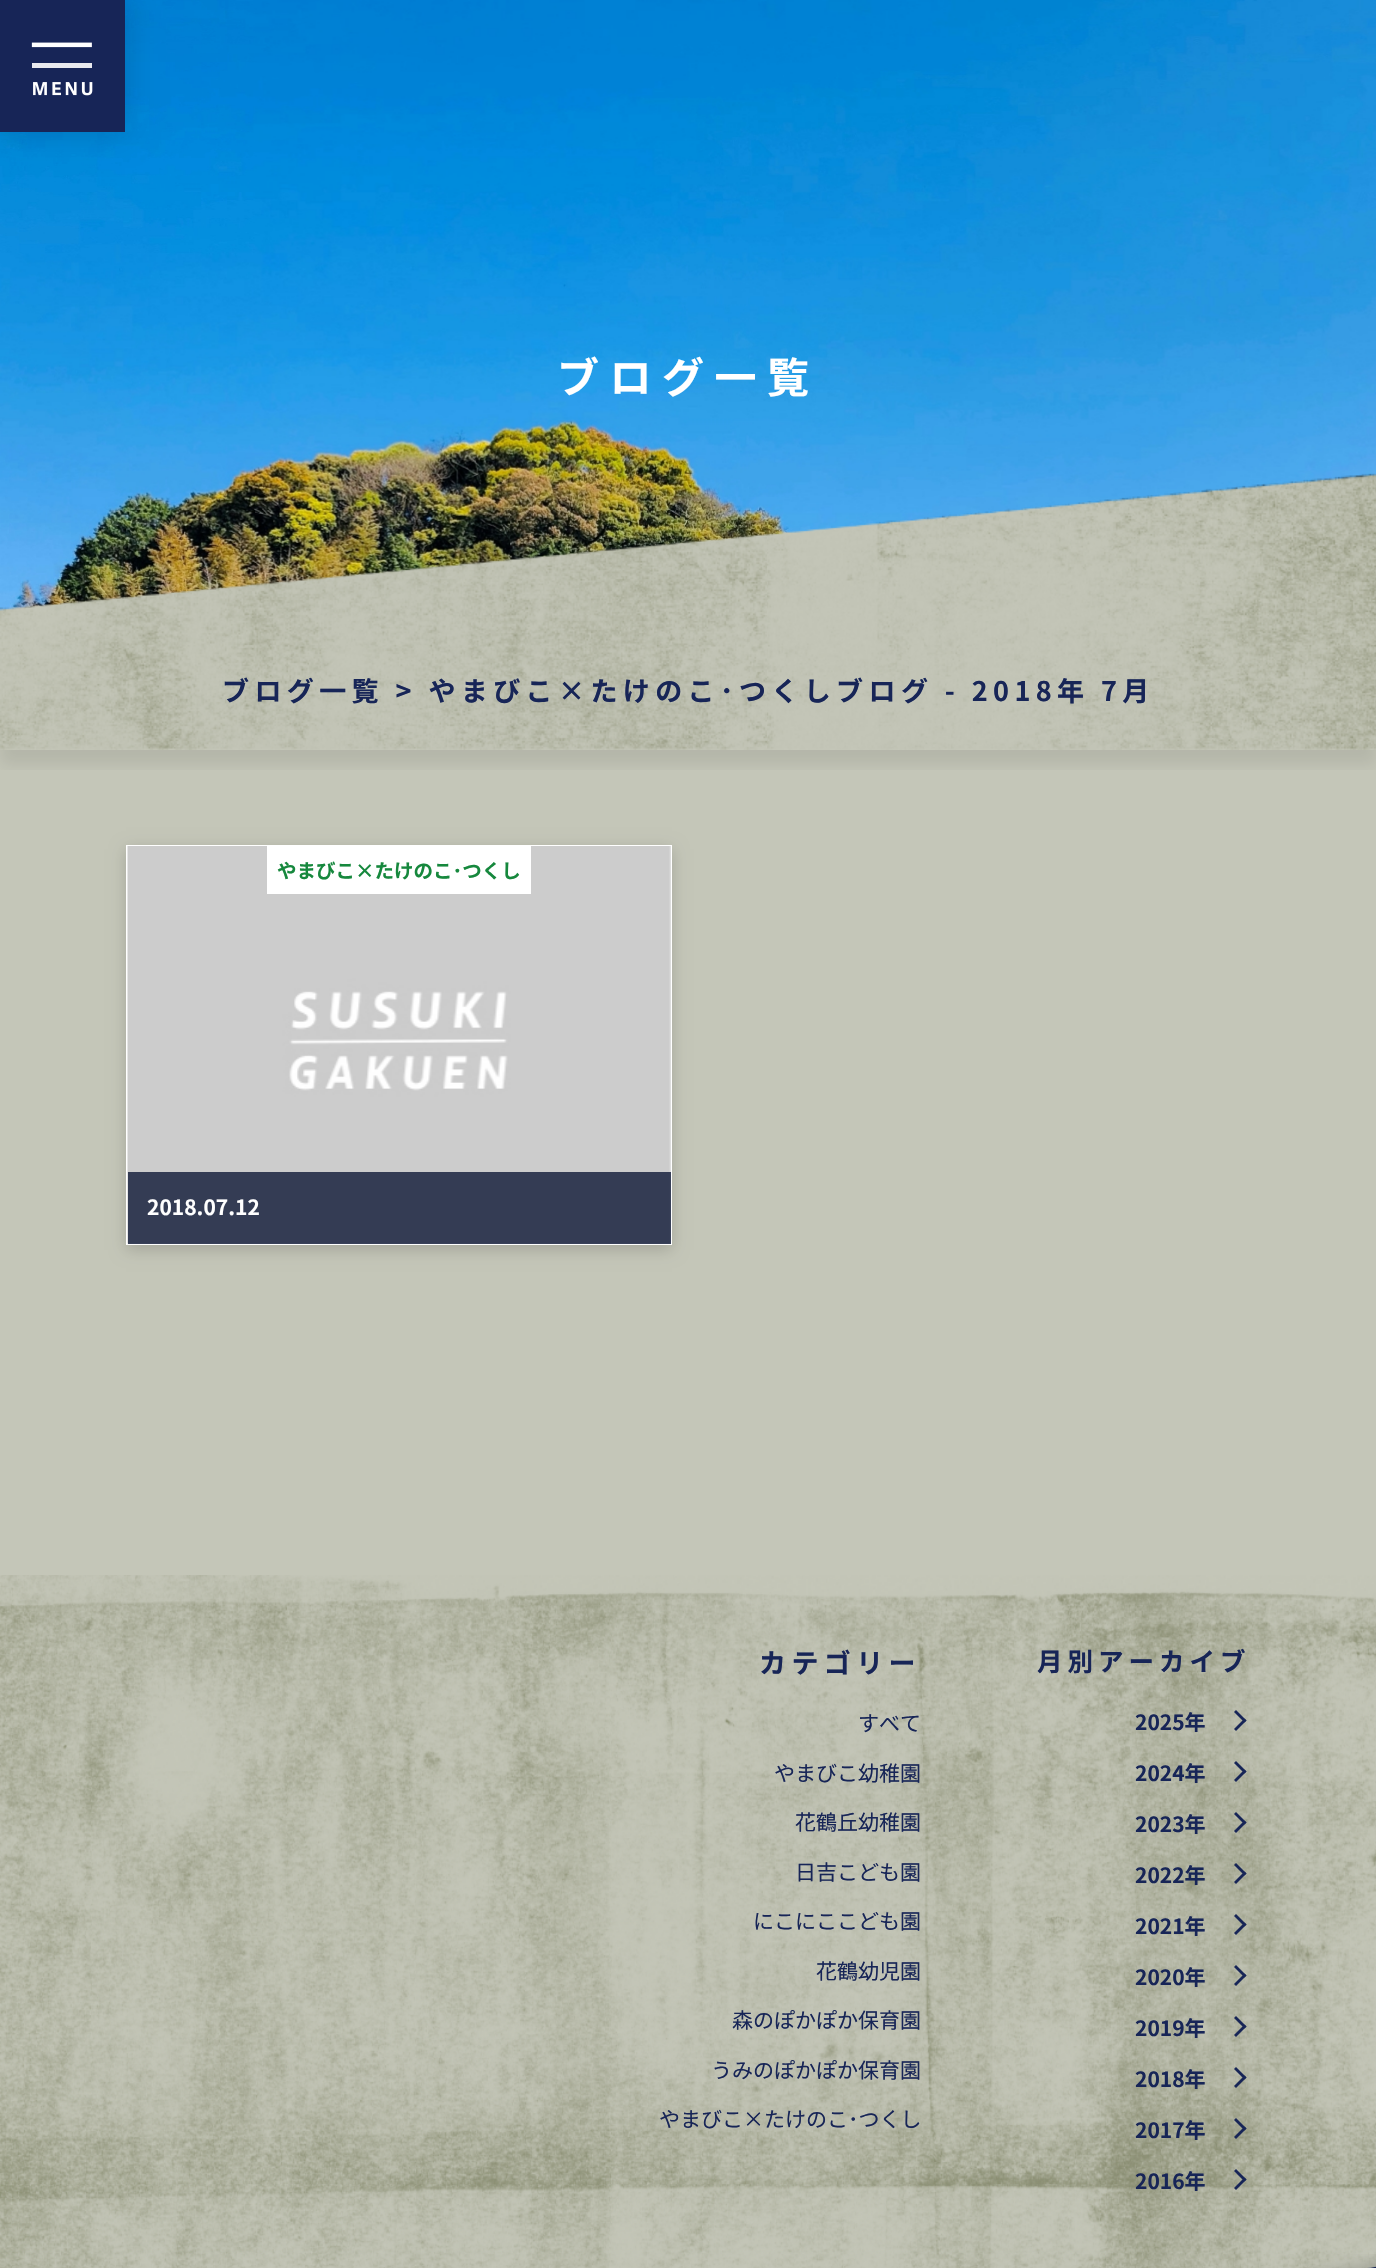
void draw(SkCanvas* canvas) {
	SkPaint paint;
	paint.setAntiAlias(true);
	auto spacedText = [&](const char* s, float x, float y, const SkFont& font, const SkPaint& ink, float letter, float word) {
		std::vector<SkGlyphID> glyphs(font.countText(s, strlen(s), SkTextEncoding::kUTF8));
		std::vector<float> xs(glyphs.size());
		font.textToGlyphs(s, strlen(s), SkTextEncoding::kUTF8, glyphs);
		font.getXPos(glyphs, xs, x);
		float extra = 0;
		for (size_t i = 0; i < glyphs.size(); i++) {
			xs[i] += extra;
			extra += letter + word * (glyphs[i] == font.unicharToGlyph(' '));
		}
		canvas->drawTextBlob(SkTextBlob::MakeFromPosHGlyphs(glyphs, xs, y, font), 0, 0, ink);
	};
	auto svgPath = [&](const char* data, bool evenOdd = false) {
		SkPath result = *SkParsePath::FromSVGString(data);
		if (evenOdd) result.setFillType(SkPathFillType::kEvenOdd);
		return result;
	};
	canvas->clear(0xffffffff);
	canvas->drawImageRect(SkImages::DeferredFromEncodedData(SkData::MakeFromFileName("img2.png")), SkRect::MakeXYWH(0, 0, 1376, 611), SkSamplingOptions());
	paint.setColor(0x29000000);
	paint.setMaskFilter(SkMaskFilter::MakeBlur(kNormal_SkBlurStyle, 15));
	canvas->drawRect(SkRect::MakeXYWH(0, 0, 125, 132), paint);
	paint.setMaskFilter(nullptr);
	canvas->drawImageRect(SkImages::DeferredFromEncodedData(SkData::MakeFromFileName("img1.png")), SkRect::MakeXYWH(0, 0, 125, 132), SkSamplingOptions());
	SkFont f1(fontMgr->matchFamilyStyle("Noto Sans JP", SkFontStyle::Bold()), 42);
	f1.setSubpixel(true);
	paint.setColor(0xffffffff);
	spacedText("ブログ一覧", 557, 393, f1, paint, 10.5, 0);
	paint.setColor(0xffc4c6b8);
	canvas->drawRect(SkRect::MakeXYWH(0, 750, 1376, 825), paint);
	canvas->save();
	canvas->clipRect(SkRect::MakeXYWH(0, 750, 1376, 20));
	paint.setColor(0x14000000);
	paint.setMaskFilter(SkMaskFilter::MakeBlur(kNormal_SkBlurStyle, 7.5));
	canvas->drawRect(SkRect::MakeXYWH(0, 420, 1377, 345), paint);
	paint.setMaskFilter(nullptr);
	canvas->restore();
	canvas->drawImageRect(SkImages::DeferredFromEncodedData(SkData::MakeFromFileName("img3.png")), SkRect::MakeXYWH(0, 473, 1376, 277), SkSamplingOptions());
	SkFont f2(fontMgr->matchFamilyStyle("Noto Sans JP", SkFontStyle::Bold()), 27);
	f2.setSubpixel(true);
	paint.setColor(0xff172557);
	spacedText("ブログ一覧 > やまびこ×たけのこ･つくしブログ - 2018年 7月", 222, 701, f2, paint, 5.4, 0);
	paint.setColor(0x29000000);
	paint.setMaskFilter(SkMaskFilter::MakeBlur(kNormal_SkBlurStyle, 7.5));
	canvas->drawRect(SkRect::MakeXYWH(126, 849, 546, 401), paint);
	paint.setMaskFilter(nullptr);
	paint.setColor(0xffffffff);
	canvas->drawRect(SkRect::MakeXYWH(126, 845, 546, 400), paint);
	canvas->drawImageRect(SkImages::DeferredFromEncodedData(SkData::MakeFromFileName("img4.png")), SkRect::MakeXYWH(127, 846, 544, 398), SkSamplingOptions());
	canvas->drawRect(SkRect::MakeXYWH(267, 846, 264, 48), paint);
	SkFont f3(fontMgr->matchFamilyStyle("Noto Sans JP", SkFontStyle::Bold()), 19.5);
	f3.setSubpixel(true);
	paint.setColor(0xff16883d);
	canvas->drawString("やまびこ×たけのこ･つくし", 277, 878, f3, paint);
	paint.setColor(0xcc0e1836);
	canvas->drawRect(SkRect::MakeXYWH(128, 1172, 543, 72), paint);
	SkFont f4(fontMgr->matchFamilyStyle("Noto Sans JP", SkFontStyle::Bold()), 21);
	f4.setSubpixel(true);
	paint.setColor(0xffffffff);
	canvas->drawString("2018.07.12", 147, 1215, f4, paint);
	canvas->drawImageRect(SkImages::DeferredFromEncodedData(SkData::MakeFromFileName("img5.png")), SkRect::MakeXYWH(0, 1575, 1376, 693), SkSamplingOptions());
	paint.setColor(0xff172557);
	spacedText("カテゴリー", 759, 1673, f2, paint, 5.4, 0);
	SkFont f5(fontMgr->matchFamilyStyle("Noto Sans JP", SkFontStyle::Normal()), 21);
	f5.setSubpixel(true);
	canvas->drawString("すべて", 858, 1731, f5, paint);
	canvas->drawString("やまびこ幼稚園", 774, 1781, f5, paint);
	canvas->drawString("花鶴丘幼稚園", 795, 1830, f5, paint);
	canvas->drawString("日吉こども園", 795, 1880, f5, paint);
	canvas->drawString("にこにここども園", 753, 1929, f5, paint);
	canvas->drawString("花鶴幼児園", 816, 1979, f5, paint);
	canvas->drawString("森のぽかぽか保育園", 732, 2028, f5, paint);
	canvas->drawString("うみのぽかぽか保育園", 711, 2078, f5, paint);
	canvas->drawString("やまびこ×たけのこ･つくし", 659, 2127, f5, paint);
	SkFont f6(fontMgr->matchFamilyStyle("Noto Sans JP", SkFontStyle::Bold()), 25.5);
	f6.setSubpixel(true);
	spacedText("月別アーカイブ", 1037, 1671, f6, paint, 5, 0);
	canvas->drawString("2025年", 1135, 1730, f4, paint);
	canvas->drawPath(svgPath("M1236 1710L1246.5 1720.5L1244.5 1722.5L1234 1712Z"), paint);
	canvas->drawPath(svgPath("M1244.5 1718.5L1246.5 1720.5L1236 1731L1234 1729Z"), paint);
	canvas->drawString("2024年", 1135, 1781, f4, paint);
	canvas->drawPath(svgPath("M1236 1761L1246.5 1771.5L1244.5 1773.5L1234 1763Z"), paint);
	canvas->drawPath(svgPath("M1244.5 1769.5L1246.5 1771.5L1236 1782L1234 1780Z"), paint);
	canvas->drawString("2023年", 1135, 1832, f4, paint);
	canvas->drawPath(svgPath("M1236 1812L1246.5 1822.5L1244.5 1824.5L1234 1814Z"), paint);
	canvas->drawPath(svgPath("M1244.5 1820.5L1246.5 1822.5L1236 1833L1234 1831Z"), paint);
	canvas->drawString("2022年", 1135, 1883, f4, paint);
	canvas->drawPath(svgPath("M1236 1863L1246.5 1873.5L1244.5 1875.5L1234 1865Z"), paint);
	canvas->drawPath(svgPath("M1244.5 1871.5L1246.5 1873.5L1236 1884L1234 1882Z"), paint);
	canvas->drawString("2021年", 1135, 1934, f4, paint);
	canvas->drawPath(svgPath("M1236 1914L1246.5 1924.5L1244.5 1926.5L1234 1916Z"), paint);
	canvas->drawPath(svgPath("M1244.5 1922.5L1246.5 1924.5L1236 1935L1234 1933Z"), paint);
	canvas->drawString("2020年", 1135, 1985, f4, paint);
	canvas->drawPath(svgPath("M1236 1965L1246.5 1975.5L1244.5 1977.5L1234 1967Z"), paint);
	canvas->drawPath(svgPath("M1244.5 1973.5L1246.5 1975.5L1236 1986L1234 1984Z"), paint);
	canvas->drawString("2019年", 1135, 2036, f4, paint);
	canvas->drawPath(svgPath("M1236 2016L1246.5 2026.5L1244.5 2028.5L1234 2018Z"), paint);
	canvas->drawPath(svgPath("M1244.5 2024.5L1246.5 2026.5L1236 2037L1234 2035Z"), paint);
	canvas->drawString("2018年", 1135, 2087, f4, paint);
	canvas->drawPath(svgPath("M1236 2067L1246.5 2077.5L1244.5 2079.5L1234 2069Z"), paint);
	canvas->drawPath(svgPath("M1244.5 2075.5L1246.5 2077.5L1236 2088L1234 2086Z"), paint);
	canvas->drawString("2017年", 1135, 2138, f4, paint);
	canvas->drawPath(svgPath("M1236 2118L1246.5 2128.5L1244.5 2130.5L1234 2120Z"), paint);
	canvas->drawPath(svgPath("M1244.5 2126.5L1246.5 2128.5L1236 2139L1234 2137Z"), paint);
	canvas->drawString("2016年", 1135, 2189, f4, paint);
	canvas->drawPath(svgPath("M1236 2169L1246.5 2179.5L1244.5 2181.5L1234 2171Z"), paint);
	canvas->drawPath(svgPath("M1244.5 2177.5L1246.5 2179.5L1236 2190L1234 2188Z"), paint);
	canvas->drawImageRect(SkImages::DeferredFromEncodedData(SkData::MakeFromFileName("img6.png")), SkRect::MakeXYWH(1303, 2254, 73, 14), SkSamplingOptions());
}
